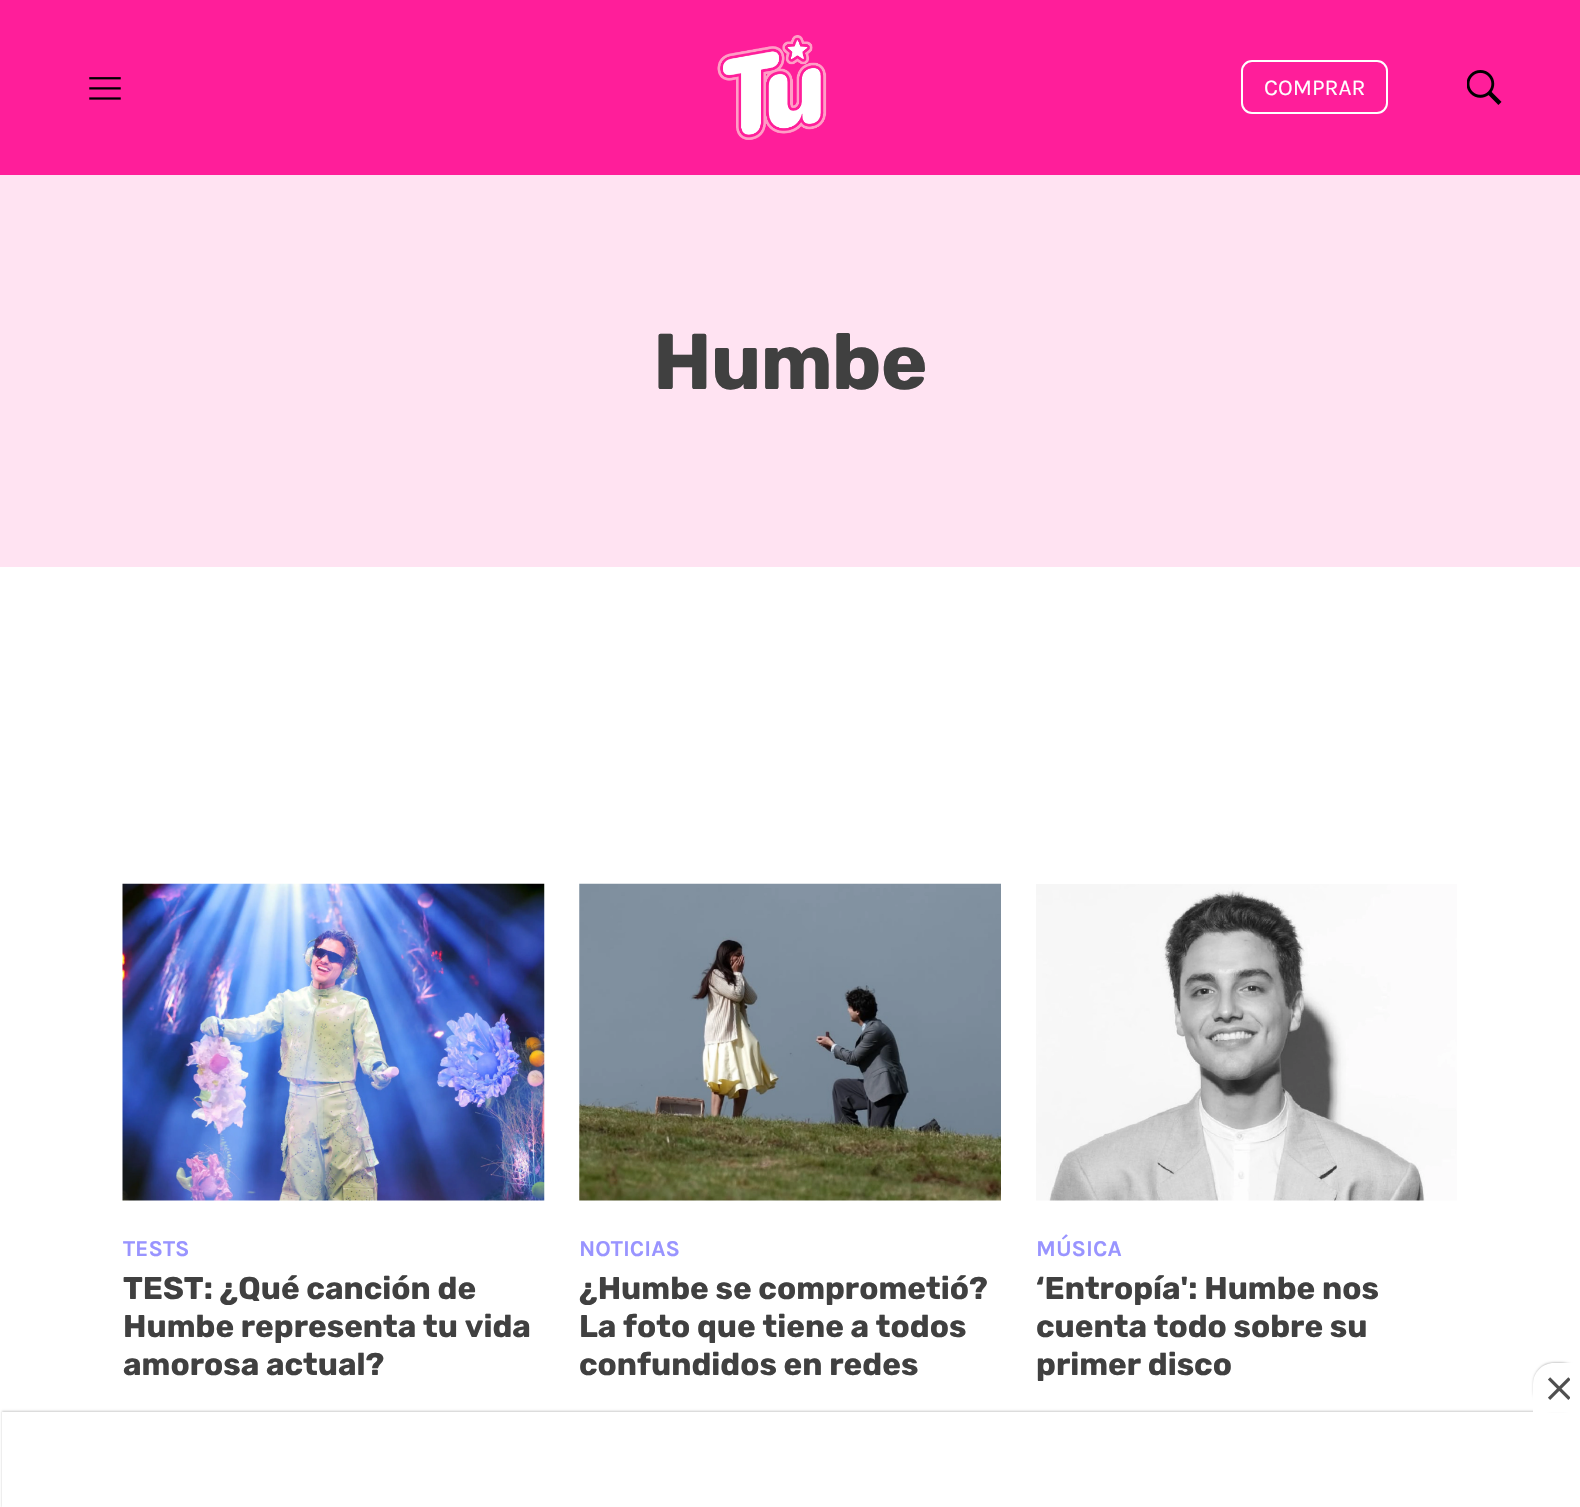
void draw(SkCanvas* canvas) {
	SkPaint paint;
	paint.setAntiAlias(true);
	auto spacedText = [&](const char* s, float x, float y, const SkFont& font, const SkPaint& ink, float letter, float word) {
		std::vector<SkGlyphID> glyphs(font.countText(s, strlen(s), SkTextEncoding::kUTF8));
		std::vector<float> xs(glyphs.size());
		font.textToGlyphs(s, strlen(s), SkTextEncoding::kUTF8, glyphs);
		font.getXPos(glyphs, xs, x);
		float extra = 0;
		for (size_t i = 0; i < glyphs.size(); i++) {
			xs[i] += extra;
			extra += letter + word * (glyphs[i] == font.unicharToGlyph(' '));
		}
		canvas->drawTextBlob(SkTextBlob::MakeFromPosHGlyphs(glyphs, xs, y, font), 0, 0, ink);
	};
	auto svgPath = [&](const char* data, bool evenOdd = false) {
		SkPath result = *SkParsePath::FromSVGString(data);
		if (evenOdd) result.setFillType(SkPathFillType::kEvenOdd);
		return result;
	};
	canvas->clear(0xffffffff);
	paint.setColor(0xffff1e9a);
	canvas->drawRect(SkRect::MakeXYWH(0, 0, 1580, 175), paint);
	canvas->drawImageRect(SkImages::DeferredFromEncodedData(SkData::MakeFromFileName("img1.png")), SkRect::MakeXYWH(89, 77, 32, 23), SkSamplingOptions());
	canvas->drawImageRect(SkImages::DeferredFromEncodedData(SkData::MakeFromFileName("img2.png")), SkRect::MakeXYWH(717, 35, 110, 105), SkSamplingOptions());
	paint.setStroke(true);
	paint.setStrokeWidth(2);
	paint.setColor(0xffffffff);
	canvas->drawRoundRect(SkRect::MakeXYWH(1242, 61, 145, 52), 10, 10, paint);
	SkFont f1(fontMgr->matchFamilyStyle("Karla", SkFontStyle::Normal()), 22.75);
	f1.setSubpixel(true);
	paint.setStroke(false);
	canvas->drawString("COMPRAR", 1264, 95, f1, paint);
	canvas->drawImageRect(SkImages::DeferredFromEncodedData(SkData::MakeFromFileName("img3.png")), SkRect::MakeXYWH(1467, 70, 35, 35), SkSamplingOptions());
	paint.setColor(0xffffe3f2);
	canvas->drawRect(SkRect::MakeXYWH(0, 175, 1580, 392), paint);
	SkFont f2(fontMgr->matchFamilyStyle("Rubik", SkFontStyle::Bold()), 79);
	f2.setSubpixel(true);
	paint.setColor(0xff404040);
	spacedText("Humbe", 653, 389, f2, paint, -1, 0);
	canvas->drawImageRect(SkImages::DeferredFromEncodedData(SkData::MakeFromFileName("img4.png")), SkRect::MakeXYWH(122, 883, 423, 318), SkSamplingOptions());
	SkFont f3(fontMgr->matchFamilyStyle("Karla", SkFontStyle::Bold()), 22.75);
	f3.setSubpixel(true);
	paint.setColor(0xff9994ff);
	canvas->drawString("TESTS", 123, 1256, f3, paint);
	SkFont f4(fontMgr->matchFamilyStyle("Rubik", SkFontStyle::Bold()), 31.5);
	f4.setSubpixel(true);
	paint.setColor(0xff404040);
	canvas->drawString("TEST: ¿Qué canción de", 123, 1299, f4, paint);
	canvas->drawString("Humbe representa tu vida", 123, 1337, f4, paint);
	canvas->drawString("amorosa actual?", 123, 1375, f4, paint);
	canvas->drawImageRect(SkImages::DeferredFromEncodedData(SkData::MakeFromFileName("img5.png")), SkRect::MakeXYWH(579, 883, 422, 318), SkSamplingOptions());
	paint.setColor(0xff9994ff);
	canvas->drawString("NOTICIAS", 579, 1256, f3, paint);
	paint.setColor(0xff404040);
	canvas->drawString("¿Humbe se comprometió?", 579, 1299, f4, paint);
	canvas->drawString("La foto que tiene a todos", 579, 1337, f4, paint);
	canvas->drawString("confundidos en redes", 579, 1375, f4, paint);
	canvas->drawImageRect(SkImages::DeferredFromEncodedData(SkData::MakeFromFileName("img6.png")), SkRect::MakeXYWH(1036, 884, 421, 317), SkSamplingOptions());
	paint.setColor(0xff9994ff);
	canvas->drawString("MÚSICA", 1036, 1256, f3, paint);
	paint.setColor(0xff404040);
	canvas->drawString("‘Entropía': Humbe nos", 1036, 1299, f4, paint);
	canvas->drawString("cuenta todo sobre su", 1036, 1337, f4, paint);
	canvas->drawString("primer disco", 1036, 1375, f4, paint);
	paint.setColor(0x33000000);
	paint.setMaskFilter(SkMaskFilter::MakeBlur(kNormal_SkBlurStyle, 1));
	canvas->drawRect(SkRect::MakeXYWH(2, 1411, 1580, 96), paint);
	paint.setMaskFilter(nullptr);
	paint.setColor(0xffffffff);
	canvas->drawRect(SkRect::MakeXYWH(2, 1412, 1578, 95), paint);
	paint.setColor(0x33000000);
	paint.setMaskFilter(SkMaskFilter::MakeBlur(kNormal_SkBlurStyle, 1));
	canvas->drawRoundRect(SkRect::MakeXYWH(1533, 1362, 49, 49), 21, 21, paint);
	paint.setMaskFilter(nullptr);
	paint.setColor(0xffffffff);
	canvas->drawPath(svgPath("M1554 1363H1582V1412H1533V1384C1533 1372.5 1542.5 1363 1554 1363Z"), paint);
	canvas->drawImageRect(SkImages::DeferredFromEncodedData(SkData::MakeFromFileName("img7.png")), SkRect::MakeXYWH(1548, 1377, 22, 23), SkSamplingOptions());
}
